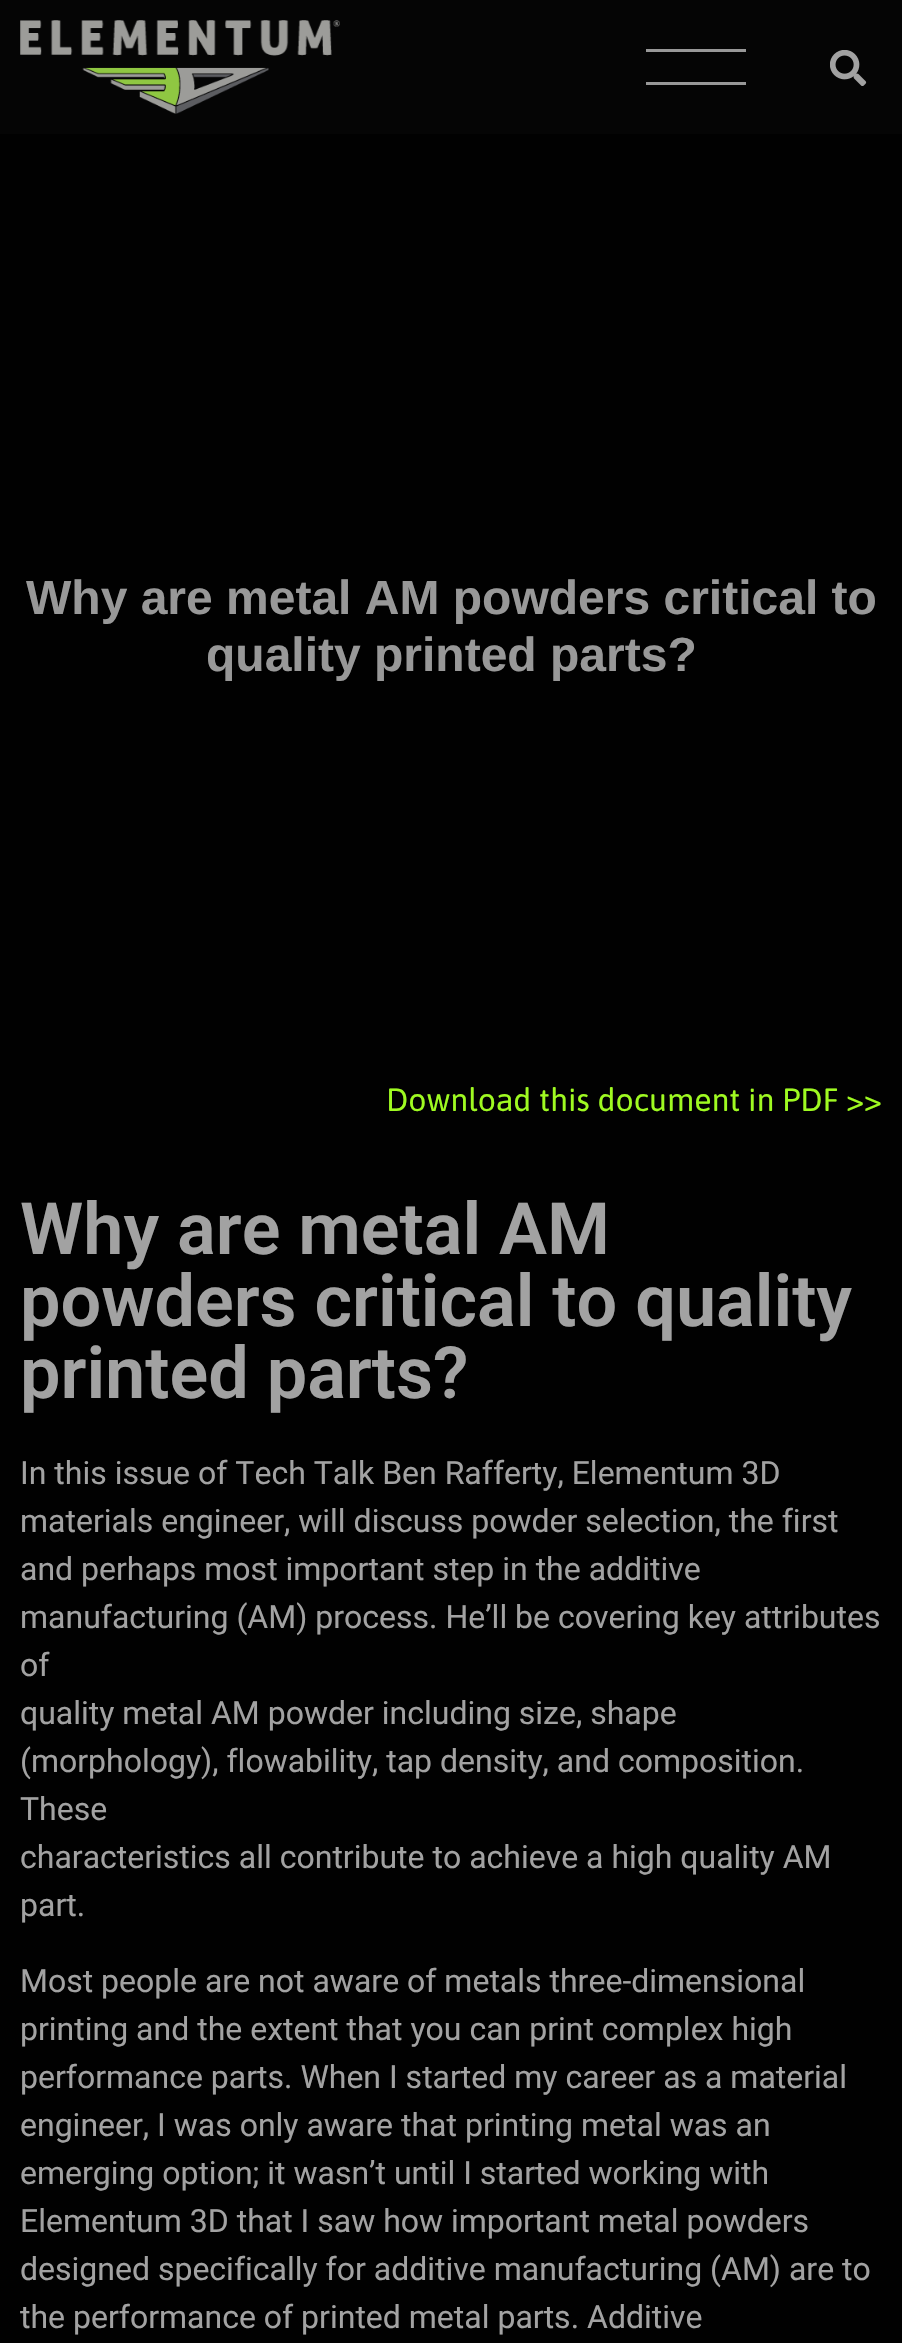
void draw(SkCanvas* canvas) {
	SkPaint paint;
	paint.setAntiAlias(true);
	canvas->clear(0xff010101);
	paint.setColor(0xff050505);
	canvas->drawRect(SkRect::MakeXYWH(0, 0, 902, 134), paint);
	canvas->drawImageRect(SkImages::DeferredFromEncodedData(SkData::MakeFromFileName("img1.png")), SkRect::MakeXYWH(20, 20, 320, 94), SkSamplingOptions());
	paint.setColor(0xff989898);
	canvas->drawRect(SkRect::MakeXYWH(646, 49, 100, 3), paint);
	canvas->drawRect(SkRect::MakeXYWH(646, 82, 100, 3), paint);
	canvas->drawImageRect(SkImages::DeferredFromEncodedData(SkData::MakeFromFileName("img2.png")), SkRect::MakeXYWH(830, 50, 37, 36), SkSamplingOptions());
	SkFont f1(fontMgr->matchFamilyStyle("Liberation Sans", SkFontStyle::Bold()), 48);
	f1.setSubpixel(true);
	canvas->drawString("Why are metal AM powders critical to", 26, 614, f1, paint);
	canvas->drawString("quality printed parts?", 206, 671, f1, paint);
	SkFont f2(fontMgr->matchFamilyStyle("Asap", SkFontStyle::Normal()), 32);
	f2.setSubpixel(true);
	paint.setColor(0xff9ffa21);
	canvas->drawString("Download this document in PDF >>", 386, 1111, f2, paint);
	SkFont f3(fontMgr->matchFamilyStyle("Roboto", SkFontStyle(600, SkFontStyle::kNormal_Width, SkFontStyle::kUpright_Slant)), 72);
	f3.setSubpixel(true);
	paint.setColor(0xffa2a2a2);
	canvas->drawString("Why are metal AM", 20, 1254, f3, paint);
	canvas->drawString("powders critical to quality", 20, 1326, f3, paint);
	canvas->drawString("printed parts?", 20, 1398, f3, paint);
	SkFont f4(fontMgr->matchFamilyStyle("Roboto", SkFontStyle::Normal()), 32);
	f4.setSubpixel(true);
	canvas->drawString("In this issue of Tech Talk Ben Rafferty, Elementum 3D", 20, 1484, f4, paint);
	canvas->drawString("materials engineer, will discuss powder selection, the first", 20, 1532, f4, paint);
	canvas->drawString("and perhaps most important step in the additive", 20, 1580, f4, paint);
	canvas->drawString("manufacturing (AM) process. He’ll be covering key attributes", 20, 1628, f4, paint);
	canvas->drawString("of", 20, 1676, f4, paint);
	canvas->drawString("quality metal AM powder including size, shape", 20, 1724, f4, paint);
	canvas->drawString("(morphology), flowability, tap density, and composition.", 20, 1772, f4, paint);
	canvas->drawString("These", 20, 1820, f4, paint);
	canvas->drawString("characteristics all contribute to achieve a high quality AM", 20, 1868, f4, paint);
	canvas->drawString("part.", 20, 1916, f4, paint);
	canvas->drawString("Most people are not aware of metals three-dimensional", 20, 1992, f4, paint);
	canvas->drawString("printing and the extent that you can print complex high", 20, 2040, f4, paint);
	canvas->drawString("performance parts. When I started my career as a material", 20, 2088, f4, paint);
	canvas->drawString("engineer, I was only aware that printing metal was an", 20, 2136, f4, paint);
	canvas->drawString("emerging option; it wasn’t until I started working with", 20, 2184, f4, paint);
	canvas->drawString("Elementum 3D that I saw how important metal powders", 20, 2232, f4, paint);
	canvas->drawString("designed specifically for additive manufacturing (AM) are to", 20, 2280, f4, paint);
	canvas->drawString("the performance of printed metal parts. Additive", 20, 2328, f4, paint);
}
